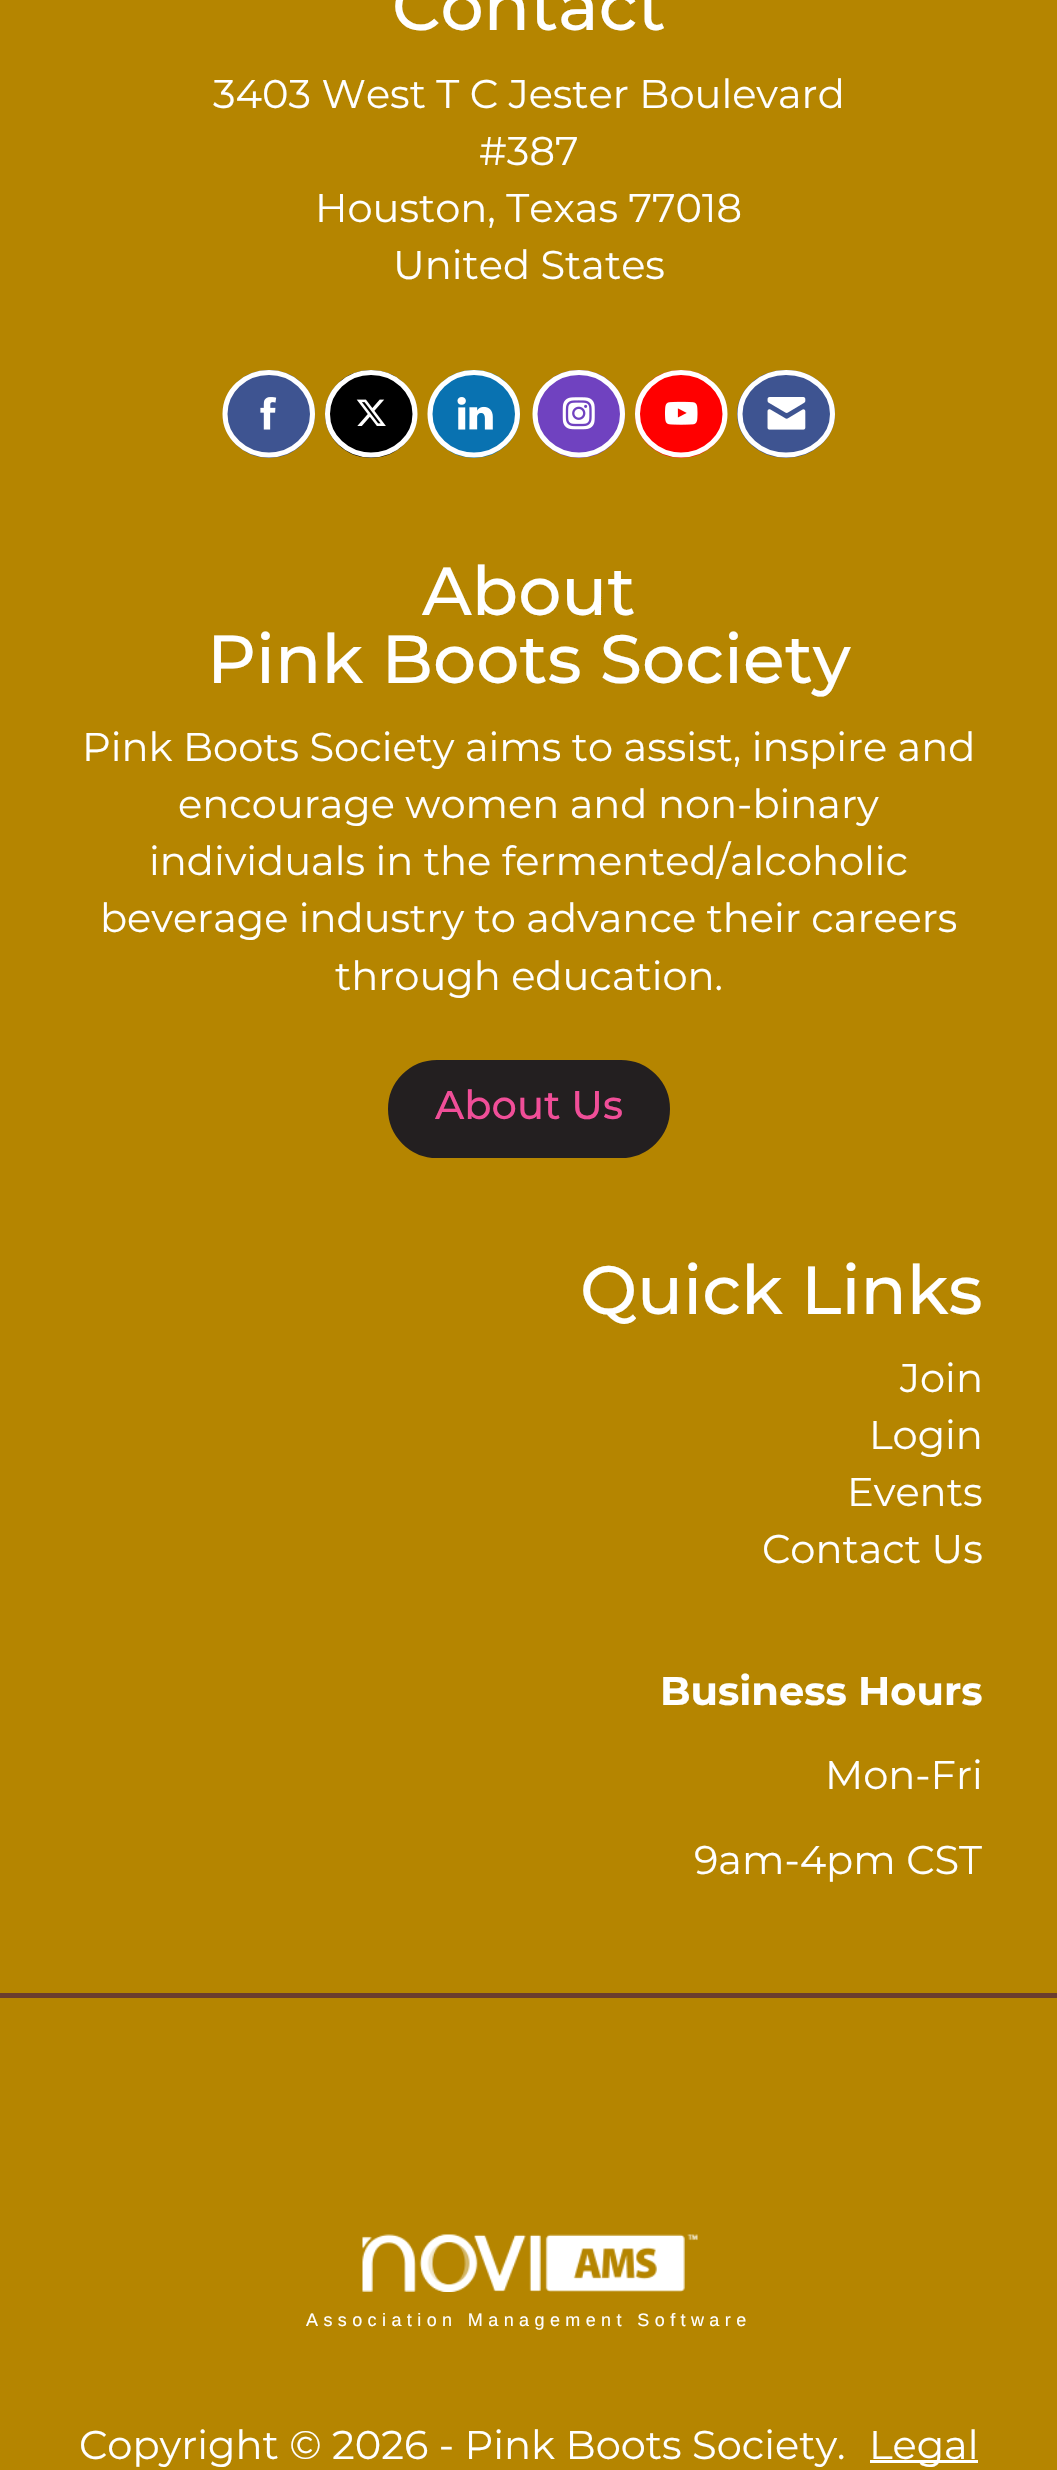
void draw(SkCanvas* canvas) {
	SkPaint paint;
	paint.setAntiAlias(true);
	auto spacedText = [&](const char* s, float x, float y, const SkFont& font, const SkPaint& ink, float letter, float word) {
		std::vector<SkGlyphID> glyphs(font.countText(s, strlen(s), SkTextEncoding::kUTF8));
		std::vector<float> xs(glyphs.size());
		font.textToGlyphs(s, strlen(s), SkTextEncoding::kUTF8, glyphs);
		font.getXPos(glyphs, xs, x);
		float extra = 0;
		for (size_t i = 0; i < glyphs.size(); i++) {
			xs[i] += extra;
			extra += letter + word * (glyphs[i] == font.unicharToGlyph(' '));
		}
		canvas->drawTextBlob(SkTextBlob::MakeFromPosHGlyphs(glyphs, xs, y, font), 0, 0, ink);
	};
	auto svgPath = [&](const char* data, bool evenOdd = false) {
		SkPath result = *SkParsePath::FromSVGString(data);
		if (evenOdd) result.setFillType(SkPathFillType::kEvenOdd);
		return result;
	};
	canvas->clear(0xffb58500);
	SkFont f1(fontMgr->matchFamilyStyle("Montserrat", SkFontStyle(500, SkFontStyle::kNormal_Width, SkFontStyle::kUpright_Slant)), 68);
	f1.setSubpixel(true);
	paint.setColor(0xffffffff);
	canvas->drawString("Contact", 392, 30, f1, paint);
	SkFont f2(fontMgr->matchFamilyStyle("Montserrat", SkFontStyle::Normal()), 40);
	f2.setSubpixel(true);
	canvas->drawString("3403 West T C Jester Boulevard", 213, 108, f2, paint);
	canvas->drawString("#387", 479, 165, f2, paint);
	canvas->drawString("Houston, Texas 77018", 315, 222, f2, paint);
	canvas->drawString("United States", 393, 279, f2, paint);
	paint.setColor(0xff3e5491);
	canvas->drawOval(SkRect::MakeXYWH(223, 370, 92, 88), paint);
	paint.setStroke(true);
	paint.setStrokeWidth(5);
	paint.setColor(0xffffffff);
	canvas->drawPath(svgPath("M269 372.5C293 372.5 312.5 391 312.5 414C312.5 436.5 293 455 269 455C244.5 455 225 436.5 225 414C225 391 244.5 372.5 269 372.5Z"), paint);
	canvas->drawImageRect(SkImages::DeferredFromEncodedData(SkData::MakeFromFileName("img1.png")), SkRect::MakeXYWH(260, 397, 17, 33), SkSamplingOptions());
	paint.setStroke(false);
	paint.setColor(0xff000000);
	canvas->drawOval(SkRect::MakeXYWH(325, 370, 92, 88), paint);
	paint.setStroke(true);
	paint.setColor(0xffffffff);
	canvas->drawPath(svgPath("M371 372.5C395.5 372.5 415 391 415 414C415 436.5 395.5 455 371 455C347 455 327.5 436.5 327.5 414C327.5 391 347 372.5 371 372.5Z"), paint);
	canvas->drawImageRect(SkImages::DeferredFromEncodedData(SkData::MakeFromFileName("img2.png")), SkRect::MakeXYWH(356, 399, 30, 27), SkSamplingOptions());
	paint.setStroke(false);
	paint.setColor(0xff0972b1);
	canvas->drawOval(SkRect::MakeXYWH(428, 370, 92, 88), paint);
	paint.setStroke(true);
	paint.setColor(0xffffffff);
	canvas->drawPath(svgPath("M474 372.5C498 372.5 517.5 391 517.5 414C517.5 436.5 498 455 474 455C449.5 455 430 436.5 430 414C430 391 449.5 372.5 474 372.5Z"), paint);
	canvas->drawImageRect(SkImages::DeferredFromEncodedData(SkData::MakeFromFileName("img3.png")), SkRect::MakeXYWH(457, 397, 36, 33), SkSamplingOptions());
	paint.setStroke(false);
	paint.setColor(0xff7042c0);
	canvas->drawOval(SkRect::MakeXYWH(533, 370, 92, 88), paint);
	paint.setStroke(true);
	paint.setColor(0xffffffff);
	canvas->drawPath(svgPath("M579 372.5C603 372.5 622.5 391 622.5 414C622.5 436.5 603 455 579 455C554.5 455 535 436.5 535 414C535 391 554.5 372.5 579 372.5Z"), paint);
	canvas->drawImageRect(SkImages::DeferredFromEncodedData(SkData::MakeFromFileName("img4.png")), SkRect::MakeXYWH(562, 397, 33, 33), SkSamplingOptions());
	paint.setStroke(false);
	paint.setColor(0xffff0000);
	canvas->drawOval(SkRect::MakeXYWH(635, 370, 92, 88), paint);
	paint.setStroke(true);
	paint.setColor(0xffffffff);
	canvas->drawPath(svgPath("M681 372.5C705.5 372.5 725 391 725 414C725 436.5 705.5 455 681 455C657 455 637.5 436.5 637.5 414C637.5 391 657 372.5 681 372.5Z"), paint);
	canvas->drawImageRect(SkImages::DeferredFromEncodedData(SkData::MakeFromFileName("img5.png")), SkRect::MakeXYWH(665, 401, 33, 24), SkSamplingOptions());
	paint.setStroke(false);
	paint.setColor(0xff3e5491);
	canvas->drawOval(SkRect::MakeXYWH(737, 370, 98, 88), paint);
	paint.setStroke(true);
	paint.setColor(0xffffffff);
	canvas->drawPath(svgPath("M786 372.5C812 372.5 832.5 391 832.5 414C832.5 436.5 812 455 786 455C760.5 455 740 436.5 740 414C740 391 760.5 372.5 786 372.5Z"), paint);
	canvas->drawImageRect(SkImages::DeferredFromEncodedData(SkData::MakeFromFileName("img6.png")), SkRect::MakeXYWH(767, 397, 39, 33), SkSamplingOptions());
	paint.setStroke(false);
	canvas->drawString("About", 422, 615, f1, paint);
	canvas->drawString("Pink Boots Society", 207, 683, f1, paint);
	canvas->drawString("Pink Boots Society aims to assist, inspire and", 82, 761, f2, paint);
	canvas->drawString("encourage women and non-binary", 178, 818, f2, paint);
	canvas->drawString("individuals in the fermented/alcoholic", 149, 875, f2, paint);
	canvas->drawString("beverage industry to advance their careers", 100, 932, f2, paint);
	canvas->drawString("through education.", 335, 990, f2, paint);
	paint.setColor(0xff231f20);
	canvas->drawRoundRect(SkRect::MakeXYWH(390.5, 1062.5, 277, 93), 46.5, 46.5, paint);
	paint.setStroke(true);
	canvas->drawRoundRect(SkRect::MakeXYWH(390.5, 1062.5, 277, 93), 46.5, 46.5, paint);
	SkFont f3(fontMgr->matchFamilyStyle("Montserrat", SkFontStyle(500, SkFontStyle::kNormal_Width, SkFontStyle::kUpright_Slant)), 40);
	f3.setSubpixel(true);
	paint.setStroke(false);
	paint.setColor(0xfff04e98);
	canvas->drawString("About Us", 435, 1119, f3, paint);
	paint.setColor(0xffffffff);
	canvas->drawString("Quick Links", 580, 1314, f1, paint);
	canvas->drawString("Join", 900, 1392, f2, paint);
	canvas->drawString("Login", 869, 1449, f2, paint);
	canvas->drawString("Events", 847, 1506, f2, paint);
	canvas->drawString("Contact Us", 762, 1563, f2, paint);
	SkFont f4(fontMgr->matchFamilyStyle("Montserrat", SkFontStyle::Bold()), 40);
	f4.setSubpixel(true);
	canvas->drawString("Business Hours", 660, 1705, f4, paint);
	canvas->drawString("Mon-Fri", 825, 1789, f2, paint);
	canvas->drawString("9am-4pm CST", 694, 1874, f2, paint);
	paint.setColor(0xff6b3d2e);
	canvas->drawRect(SkRect::MakeXYWH(0, 1993, 1057, 5), paint);
	canvas->drawImageRect(SkImages::DeferredFromEncodedData(SkData::MakeFromFileName("img7.png")), SkRect::MakeXYWH(362, 2234, 336, 58), SkSamplingOptions());
	SkFont f5(fontMgr->matchFamilyStyle("Liberation Sans", SkFontStyle::Normal()), 18);
	f5.setSubpixel(true);
	paint.setColor(0xffffffff);
	spacedText("Association Management Software", 306, 2326, f5, paint, 5.4, 0);
	canvas->drawString("Copyright © 2026 - Pink Boots Society.", 79, 2459, f2, paint);
	canvas->drawRect(SkRect::MakeXYWH(870, 2460, 108, 3), paint);
	canvas->drawString("Legal", 869, 2459, f2, paint);
}
